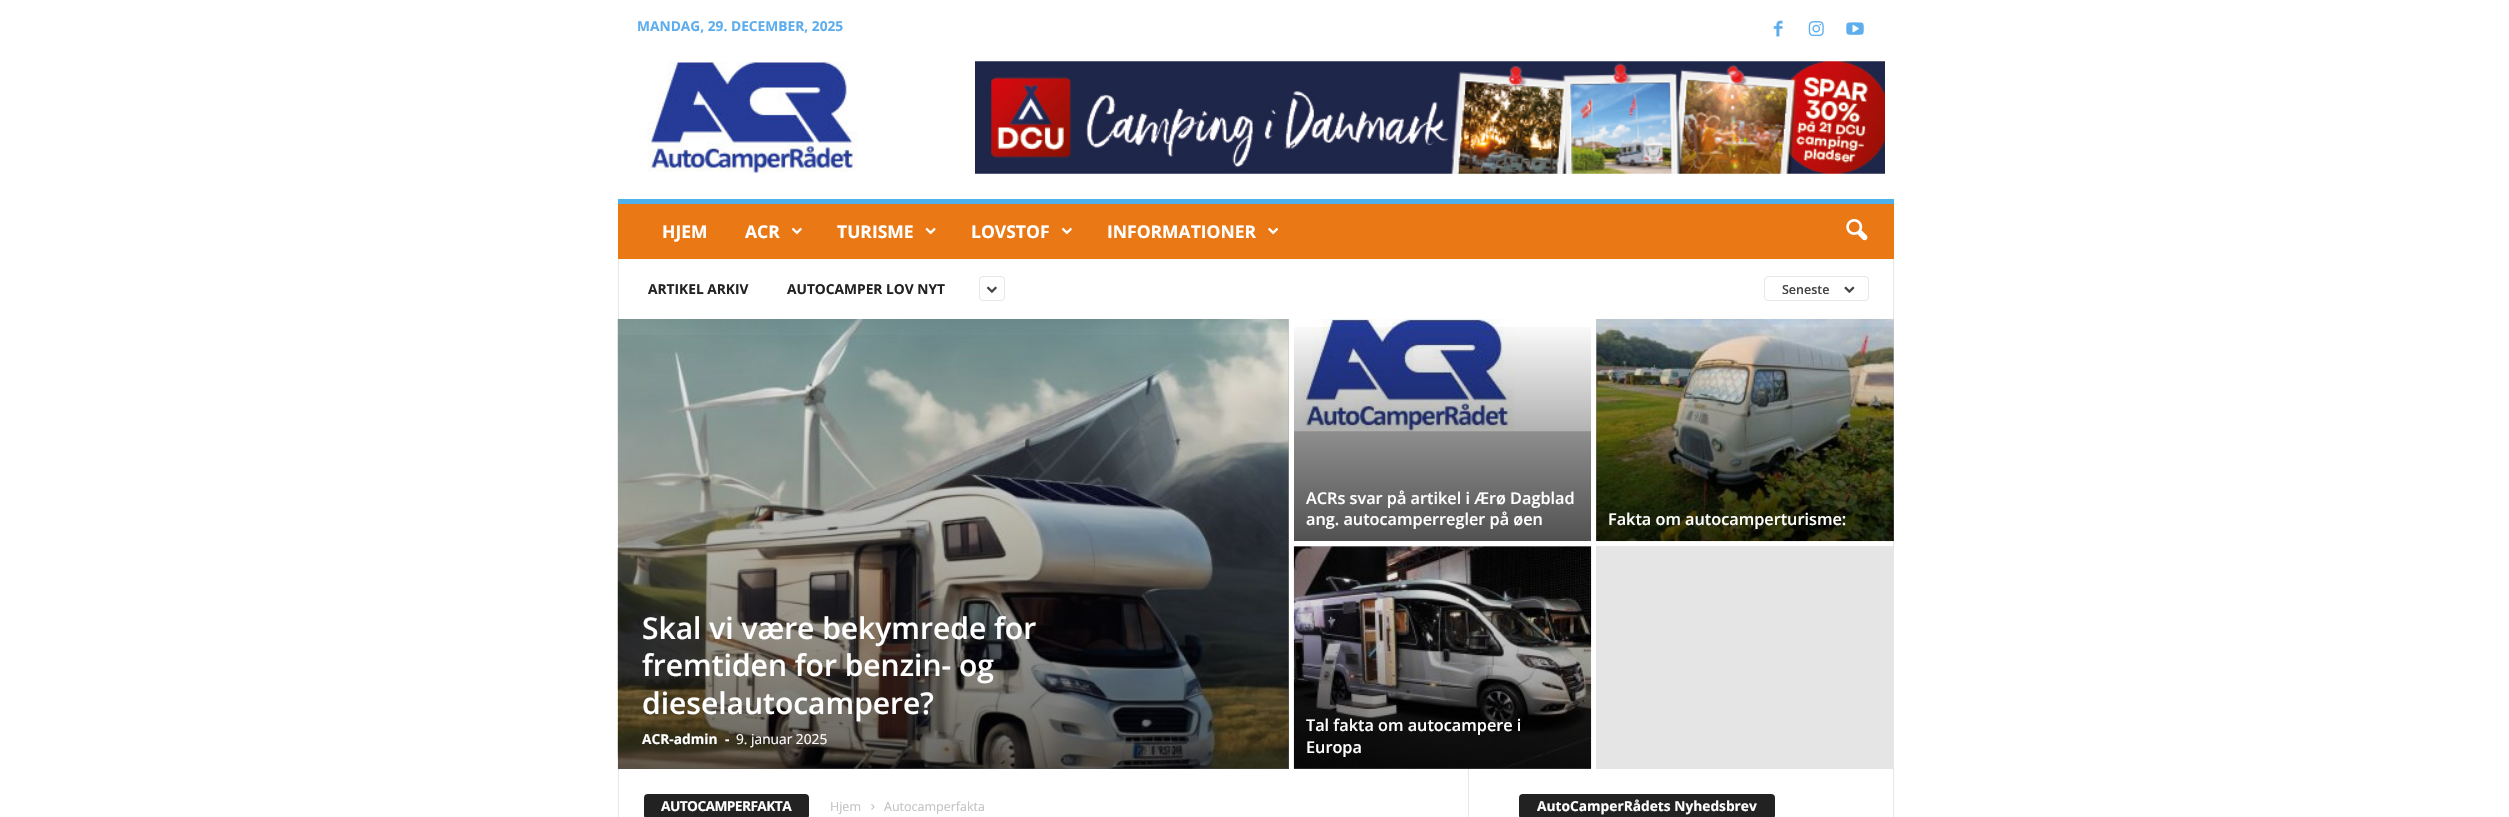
void draw(SkCanvas* canvas) {
	SkPaint paint;
	paint.setAntiAlias(true);
	auto spacedText = [&](const char* s, float x, float y, const SkFont& font, const SkPaint& ink, float letter, float word) {
		std::vector<SkGlyphID> glyphs(font.countText(s, strlen(s), SkTextEncoding::kUTF8));
		std::vector<float> xs(glyphs.size());
		font.textToGlyphs(s, strlen(s), SkTextEncoding::kUTF8, glyphs);
		font.getXPos(glyphs, xs, x);
		float extra = 0;
		for (size_t i = 0; i < glyphs.size(); i++) {
			xs[i] += extra;
			extra += letter + word * (glyphs[i] == font.unicharToGlyph(' '));
		}
		canvas->drawTextBlob(SkTextBlob::MakeFromPosHGlyphs(glyphs, xs, y, font), 0, 0, ink);
	};
	canvas->clear(0xffffffff);
	SkFont f1(fontMgr->matchFamilyStyle("Open Sans", SkFontStyle::Bold()), 13.75);
	f1.setSubpixel(true);
	paint.setColor(0xff5eaded);
	canvas->drawString("MANDAG, 29. DECEMBER, 2025", 637, 31, f1, paint);
	canvas->drawImageRect(SkImages::DeferredFromEncodedData(SkData::MakeFromFileName("img1.png")), SkRect::MakeXYWH(1773, 20, 10, 17), SkSamplingOptions());
	canvas->drawImageRect(SkImages::DeferredFromEncodedData(SkData::MakeFromFileName("img2.png")), SkRect::MakeXYWH(1808, 21, 16, 16), SkSamplingOptions());
	canvas->drawImageRect(SkImages::DeferredFromEncodedData(SkData::MakeFromFileName("img3.png")), SkRect::MakeXYWH(1846, 22, 18, 13), SkSamplingOptions());
	canvas->drawImageRect(SkImages::DeferredFromEncodedData(SkData::MakeFromFileName("img4.png")), SkRect::MakeXYWH(647, 61, 211, 113), SkSamplingOptions());
	canvas->drawImageRect(SkImages::DeferredFromEncodedData(SkData::MakeFromFileName("img5.png")), SkRect::MakeXYWH(975, 61, 910, 113), SkSamplingOptions());
	paint.setColor(0xffea7815);
	canvas->drawRect(SkRect::MakeXYWH(618, 204, 1276, 55), paint);
	paint.setColor(0xff4db2ec);
	canvas->drawRect(SkRect::MakeXYWH(618, 199, 1276, 5), paint);
	SkFont f2(fontMgr->matchFamilyStyle("Open Sans", SkFontStyle::Bold()), 17.5);
	f2.setSubpixel(true);
	paint.setColor(0xffffffff);
	canvas->drawString("HJEM", 662, 238, f2, paint);
	canvas->drawString("ACR", 745, 238, f2, paint);
	canvas->drawImageRect(SkImages::DeferredFromEncodedData(SkData::MakeFromFileName("img6.png")), SkRect::MakeXYWH(791, 227, 11, 8), SkSamplingOptions());
	canvas->drawString("TURISME", 837, 238, f2, paint);
	canvas->drawImageRect(SkImages::DeferredFromEncodedData(SkData::MakeFromFileName("img7.png")), SkRect::MakeXYWH(925, 227, 11, 8), SkSamplingOptions());
	canvas->drawString("LOVSTOF", 971, 238, f2, paint);
	canvas->drawImageRect(SkImages::DeferredFromEncodedData(SkData::MakeFromFileName("img6.png")), SkRect::MakeXYWH(1061, 227, 11, 8), SkSamplingOptions());
	canvas->drawString("INFORMATIONER", 1107, 238, f2, paint);
	canvas->drawImageRect(SkImages::DeferredFromEncodedData(SkData::MakeFromFileName("img8.png")), SkRect::MakeXYWH(1268, 227, 11, 8), SkSamplingOptions());
	canvas->drawImageRect(SkImages::DeferredFromEncodedData(SkData::MakeFromFileName("img9.png")), SkRect::MakeXYWH(1846, 219, 22, 22), SkSamplingOptions());
	paint.setColor(0xffe6e6e6);
	canvas->drawRect(SkRect::MakeXYWH(618, 259, 1, 60), paint);
	paint.setColor(0xff222222);
	canvas->drawString("ARTIKEL ARKIV", 648, 294, f1, paint);
	canvas->drawString("AUTOCAMPER LOV NYT", 787, 294, f1, paint);
	paint.setStroke(true);
	paint.setStrokeWidth(1);
	paint.setColor(0xffe6e6e6);
	canvas->drawRoundRect(SkRect::MakeXYWH(979.5, 276.5, 25, 24), 3.5, 3.5, paint);
	canvas->drawImageRect(SkImages::DeferredFromEncodedData(SkData::MakeFromFileName("img10.png")), SkRect::MakeXYWH(986, 286, 11, 7), SkSamplingOptions());
	canvas->drawRoundRect(SkRect::MakeXYWH(1764.5, 276.5, 104, 24), 3.5, 3.5, paint);
	SkFont f3(fontMgr->matchFamilyStyle("Open Sans", SkFontStyle(600, SkFontStyle::kNormal_Width, SkFontStyle::kUpright_Slant)), 12.5);
	f3.setSubpixel(true);
	paint.setStroke(false);
	paint.setColor(0xff444444);
	canvas->drawString("Seneste", 1782, 294, f3, paint);
	canvas->drawImageRect(SkImages::DeferredFromEncodedData(SkData::MakeFromFileName("img11.png")), SkRect::MakeXYWH(1844, 286, 11, 7), SkSamplingOptions());
	paint.setColor(0xffe6e6e6);
	canvas->drawRect(SkRect::MakeXYWH(1893, 259, 1, 60), paint);
	canvas->drawRect(SkRect::MakeXYWH(618, 769, 1, 48), paint);
	paint.setColor(0xffcccccc);
	canvas->drawRect(SkRect::MakeXYWH(1294, 431, 297, 110), paint);
	canvas->drawImageRect(SkImages::DeferredFromEncodedData(SkData::MakeFromFileName("img12.png")), SkRect::MakeXYWH(1294, 319, 297, 113), SkSamplingOptions());
	{
		const SkColor colors[] = {0x00000000, 0x99000000};
		const float stops[] = {0, 1};
		const SkPoint ends[] = {{1443, 319}, {1443, 541}};
		paint.setShader(SkGradientShader::MakeLinear(ends, colors, stops, 2, SkTileMode::kClamp));
		paint.setAlpha(255);
	}
	canvas->drawRect(SkRect::MakeXYWH(1294, 327, 297, 214), paint);
	SkFont f4(fontMgr->matchFamilyStyle("Open Sans", SkFontStyle(600, SkFontStyle::kNormal_Width, SkFontStyle::kUpright_Slant)), 16.25);
	f4.setSubpixel(true);
	paint.setShader(nullptr);
	paint.setColor(0xffffffff);
	canvas->drawString("ACRs svar på artikel i Ærø Dagblad", 1306, 504, f4, paint);
	canvas->drawString("ang. autocamperregler på øen", 1306, 525, f4, paint);
	paint.setColor(0xffcccccc);
	canvas->drawRect(SkRect::MakeXYWH(1596, 319, 298, 222), paint);
	paint.setColor(0xffe6e6e6);
	canvas->drawRect(SkRect::MakeXYWH(1893, 541, 1, 276), paint);
	canvas->drawImageRect(SkImages::DeferredFromEncodedData(SkData::MakeFromFileName("img13.png")), SkRect::MakeXYWH(1596, 319, 298, 223), SkSamplingOptions());
	{
		const SkColor colors[] = {0x00000000, 0x99000000};
		const float stops[] = {0, 1};
		const SkPoint ends[] = {{1745, 319}, {1745, 541}};
		paint.setShader(SkGradientShader::MakeLinear(ends, colors, stops, 2, SkTileMode::kClamp));
		paint.setAlpha(255);
	}
	canvas->drawRect(SkRect::MakeXYWH(1596, 327, 298, 214), paint);
	paint.setShader(nullptr);
	paint.setColor(0xffffffff);
	canvas->drawString("Fakta om autocamperturisme:", 1608, 525, f4, paint);
	paint.setColor(0xffcccccc);
	canvas->drawRect(SkRect::MakeXYWH(618, 319, 671, 450), paint);
	canvas->drawImageRect(SkImages::DeferredFromEncodedData(SkData::MakeFromFileName("img14.png")), SkRect::MakeXYWH(617, 319, 672, 450), SkSamplingOptions());
	{
		const SkColor colors[] = {0x00000000, 0x99000000};
		const float stops[] = {0, 1};
		const SkPoint ends[] = {{953, 319}, {953, 769}};
		paint.setShader(SkGradientShader::MakeLinear(ends, colors, stops, 2, SkTileMode::kClamp));
		paint.setAlpha(255);
	}
	canvas->drawRect(SkRect::MakeXYWH(618, 335, 671, 434), paint);
	SkFont f5(fontMgr->matchFamilyStyle("Open Sans", SkFontStyle(600, SkFontStyle::kNormal_Width, SkFontStyle::kUpright_Slant)), 30);
	f5.setSubpixel(true);
	paint.setShader(nullptr);
	paint.setColor(0xffffffff);
	canvas->drawString("Skal vi være bekymrede for", 642, 639, f5, paint);
	canvas->drawString("fremtiden for benzin- og", 642, 676, f5, paint);
	canvas->drawString("dieselautocampere?", 642, 714, f5, paint);
	canvas->drawString("ACR-admin", 642, 744, f1, paint);
	canvas->drawString("-", 725, 744, f1, paint);
	SkFont f6(fontMgr->matchFamilyStyle("Open Sans", SkFontStyle::Normal()), 13.75);
	f6.setSubpixel(true);
	canvas->drawString("9. januar 2025", 736, 744, f6, paint);
	paint.setColor(0xffcccccc);
	canvas->drawRect(SkRect::MakeXYWH(1294, 546, 297, 223), paint);
	canvas->drawImageRect(SkImages::DeferredFromEncodedData(SkData::MakeFromFileName("img15.png")), SkRect::MakeXYWH(1293, 546, 299, 223), SkSamplingOptions());
	{
		const SkColor colors[] = {0x00000000, 0x99000000};
		const float stops[] = {0, 1};
		const SkPoint ends[] = {{1443, 546}, {1443, 769}};
		paint.setShader(SkGradientShader::MakeLinear(ends, colors, stops, 2, SkTileMode::kClamp));
		paint.setAlpha(255);
	}
	canvas->drawRect(SkRect::MakeXYWH(1294, 554, 297, 215), paint);
	paint.setShader(nullptr);
	paint.setColor(0xffffffff);
	canvas->drawString("Tal fakta om autocampere i", 1306, 731, f4, paint);
	canvas->drawString("Europa", 1306, 753, f4, paint);
	paint.setColor(0xffe5e5e5);
	canvas->drawRect(SkRect::MakeXYWH(1596, 546, 297, 223), paint);
	paint.setColor(0xff222222);
	canvas->drawRoundRect(SkRect::MakeXYWH(644, 794, 165, 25), 4, 4, paint);
	paint.setColor(0xffffffff);
	spacedText("AUTOCAMPERFAKTA", 661, 811, f1, paint, -0.6, 0);
	SkFont f7(fontMgr->matchFamilyStyle("Open Sans", SkFontStyle::Normal()), 12.5);
	f7.setSubpixel(true);
	paint.setColor(0xffc3c3c3);
	canvas->drawString("Hjem", 830, 811, f7, paint);
	canvas->drawImageRect(SkImages::DeferredFromEncodedData(SkData::MakeFromFileName("img16.png")), SkRect::MakeXYWH(871, 804, 4, 6), SkSamplingOptions());
	canvas->drawString("Autocamperfakta", 884, 811, f7, paint);
	paint.setColor(0xffe6e6e6);
	canvas->drawRect(SkRect::MakeXYWH(1468, 769, 1, 48), paint);
	paint.setColor(0xff222222);
	canvas->drawRoundRect(SkRect::MakeXYWH(1519, 794, 256, 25), 4, 4, paint);
	paint.setColor(0xffffffff);
	canvas->drawString("AutoCamperRådets Nyhedsbrev", 1537, 811, f1, paint);
}
